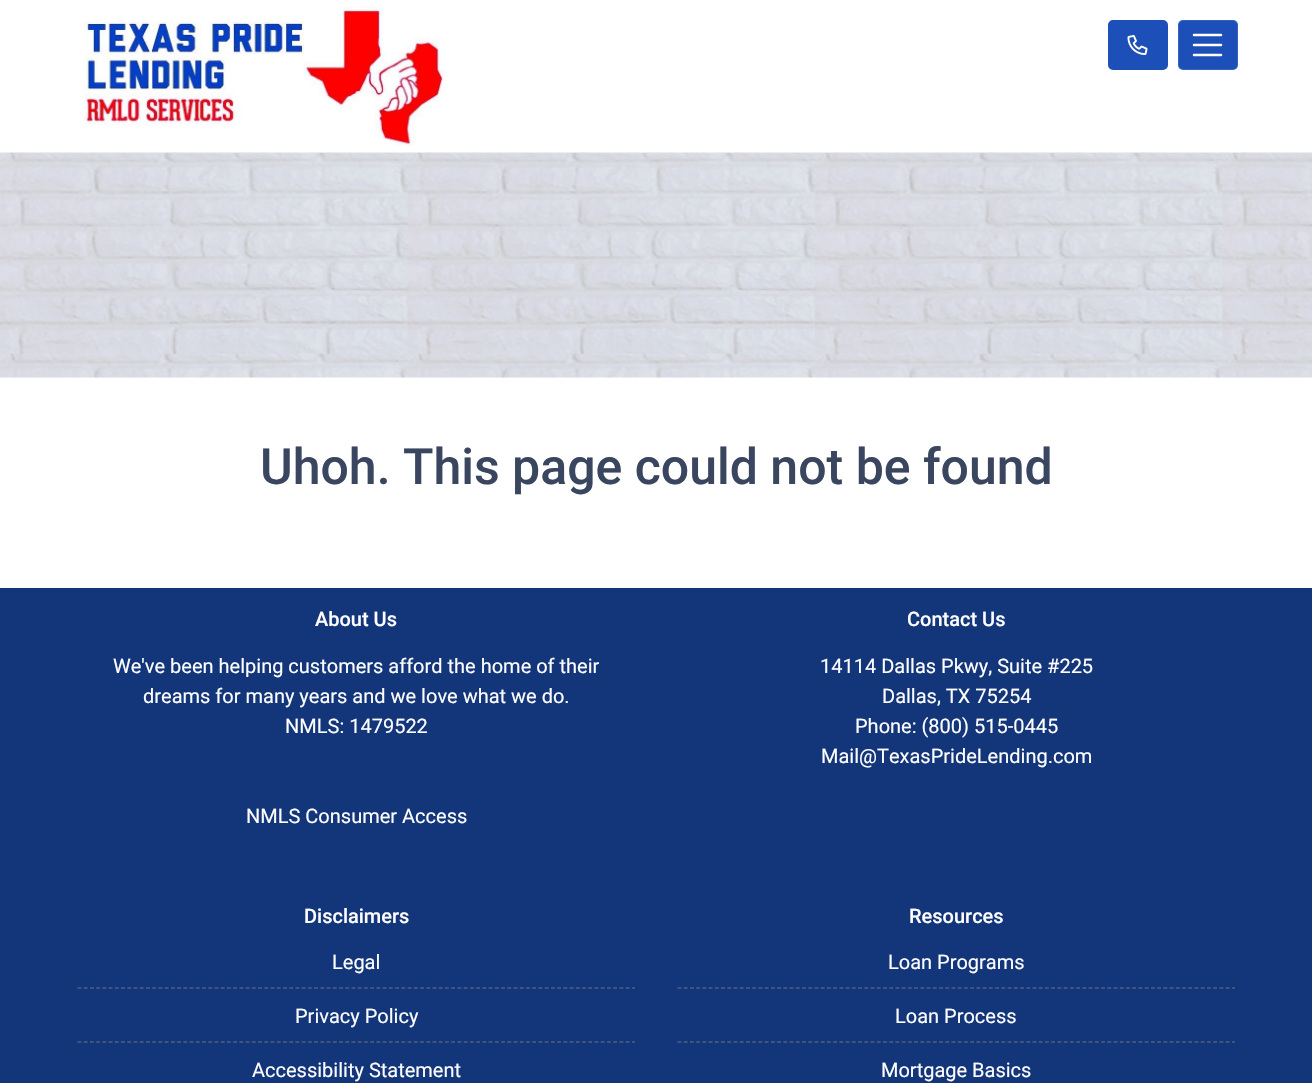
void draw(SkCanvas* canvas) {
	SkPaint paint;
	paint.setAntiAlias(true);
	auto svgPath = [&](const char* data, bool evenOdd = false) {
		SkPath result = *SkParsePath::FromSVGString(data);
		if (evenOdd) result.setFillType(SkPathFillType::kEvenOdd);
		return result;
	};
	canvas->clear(0xffffffff);
	canvas->drawImageRect(SkImages::DeferredFromEncodedData(SkData::MakeFromFileName("img1.png")), SkRect::MakeXYWH(83, 6, 362, 141), SkSamplingOptions());
	paint.setColor(0xff1c50b8);
	canvas->drawRoundRect(SkRect::MakeXYWH(1110, 22, 56, 46), 3, 3, paint);
	paint.setStroke(true);
	paint.setStrokeWidth(4);
	canvas->drawRoundRect(SkRect::MakeXYWH(1110, 22, 56, 46), 3, 3, paint);
	canvas->drawImageRect(SkImages::DeferredFromEncodedData(SkData::MakeFromFileName("img2.png")), SkRect::MakeXYWH(1127, 35, 21, 20), SkSamplingOptions());
	paint.setStroke(false);
	canvas->drawRoundRect(SkRect::MakeXYWH(1178, 20, 60, 50), 5, 5, paint);
	paint.setStroke(true);
	paint.setStrokeWidth(1);
	paint.setColor(0x1affffff);
	canvas->drawRoundRect(SkRect::MakeXYWH(1178.5, 20.5, 59, 49), 4.5, 4.5, paint);
	paint.setStrokeWidth(2.5);
	paint.setStrokeCap(SkPaint::kRound_Cap);
	paint.setColor(0xffffffff);
	canvas->drawPath(svgPath("M1194 35H1221M1194 45H1221M1194 55H1221"), paint);
	canvas->drawImageRect(SkImages::DeferredFromEncodedData(SkData::MakeFromFileName("img3.png")), SkRect::MakeXYWH(0, 152, 1312, 226), SkSamplingOptions());
	SkFont f1(fontMgr->matchFamilyStyle("Roboto", SkFontStyle(500, SkFontStyle::kNormal_Width, SkFontStyle::kUpright_Slant)), 50);
	f1.setSubpixel(true);
	paint.setStroke(false);
	paint.setColor(0xff3a455f);
	canvas->drawString("Uhoh. This page could not be found", 260, 484, f1, paint);
	paint.setColor(0xff13357a);
	canvas->drawRect(SkRect::MakeXYWH(0, 588, 1312, 495), paint);
	SkFont f2(fontMgr->matchFamilyStyle("Roboto", SkFontStyle(500, SkFontStyle::kNormal_Width, SkFontStyle::kUpright_Slant)), 20);
	f2.setSubpixel(true);
	paint.setColor(0xffffffff);
	canvas->drawString("About Us", 315, 626, f2, paint);
	SkFont f3(fontMgr->matchFamilyStyle("Roboto", SkFontStyle::Normal()), 20);
	f3.setSubpixel(true);
	canvas->drawString("We've been helping customers afford the home of their", 113, 673, f3, paint);
	canvas->drawString("dreams for many years and we love what we do.", 143, 703, f3, paint);
	canvas->drawString("NMLS: 1479522", 285, 733, f3, paint);
	canvas->drawString("NMLS Consumer Access", 246, 823, f3, paint);
	canvas->drawString("Contact Us", 907, 626, f2, paint);
	canvas->drawString("14114 Dallas Pkwy, Suite #225", 820, 673, f3, paint);
	canvas->drawString("Dallas, TX 75254", 882, 703, f3, paint);
	canvas->drawString("Phone: (800) 515-0445", 855, 733, f3, paint);
	canvas->drawString("Mail@TexasPrideLending.com", 821, 763, f3, paint);
	canvas->drawString("Disclaimers", 304, 923, f2, paint);
	paint.setStroke(true);
	paint.setStrokeWidth(1.2);
	paint.setStrokeCap(SkPaint::kButt_Cap);
	paint.setColor(0xff6c757d);
	paint.setPathEffect(SkDashPathEffect::Make({{3.75f, 2.48f}}, 0));
	canvas->drawPath(svgPath("M77.5 988H635"), paint);
	paint.setPathEffect(nullptr);
	paint.setStroke(false);
	paint.setColor(0xffffffff);
	canvas->drawString("Legal", 332, 969, f3, paint);
	paint.setStroke(true);
	paint.setColor(0xff6c757d);
	paint.setPathEffect(SkDashPathEffect::Make({{3.75f, 2.48f}}, 0));
	canvas->drawPath(svgPath("M77.5 1042H635"), paint);
	paint.setPathEffect(nullptr);
	paint.setStroke(false);
	paint.setColor(0xffffffff);
	canvas->drawString("Privacy Policy", 295, 1023, f3, paint);
	canvas->drawString("Accessibility Statement", 252, 1077, f3, paint);
	canvas->drawString("Resources", 909, 923, f2, paint);
	paint.setStroke(true);
	paint.setColor(0xff6c757d);
	paint.setPathEffect(SkDashPathEffect::Make({{3.75f, 2.48f}}, 0));
	canvas->drawPath(svgPath("M677.5 988H1235"), paint);
	paint.setPathEffect(nullptr);
	paint.setStroke(false);
	paint.setColor(0xffffffff);
	canvas->drawString("Loan Programs", 888, 969, f3, paint);
	paint.setStroke(true);
	paint.setColor(0xff6c757d);
	paint.setPathEffect(SkDashPathEffect::Make({{3.75f, 2.48f}}, 0));
	canvas->drawPath(svgPath("M677.5 1042H1235"), paint);
	paint.setPathEffect(nullptr);
	paint.setStroke(false);
	paint.setColor(0xffffffff);
	canvas->drawString("Loan Process", 895, 1023, f3, paint);
	canvas->drawString("Mortgage Basics", 881, 1077, f3, paint);
}
